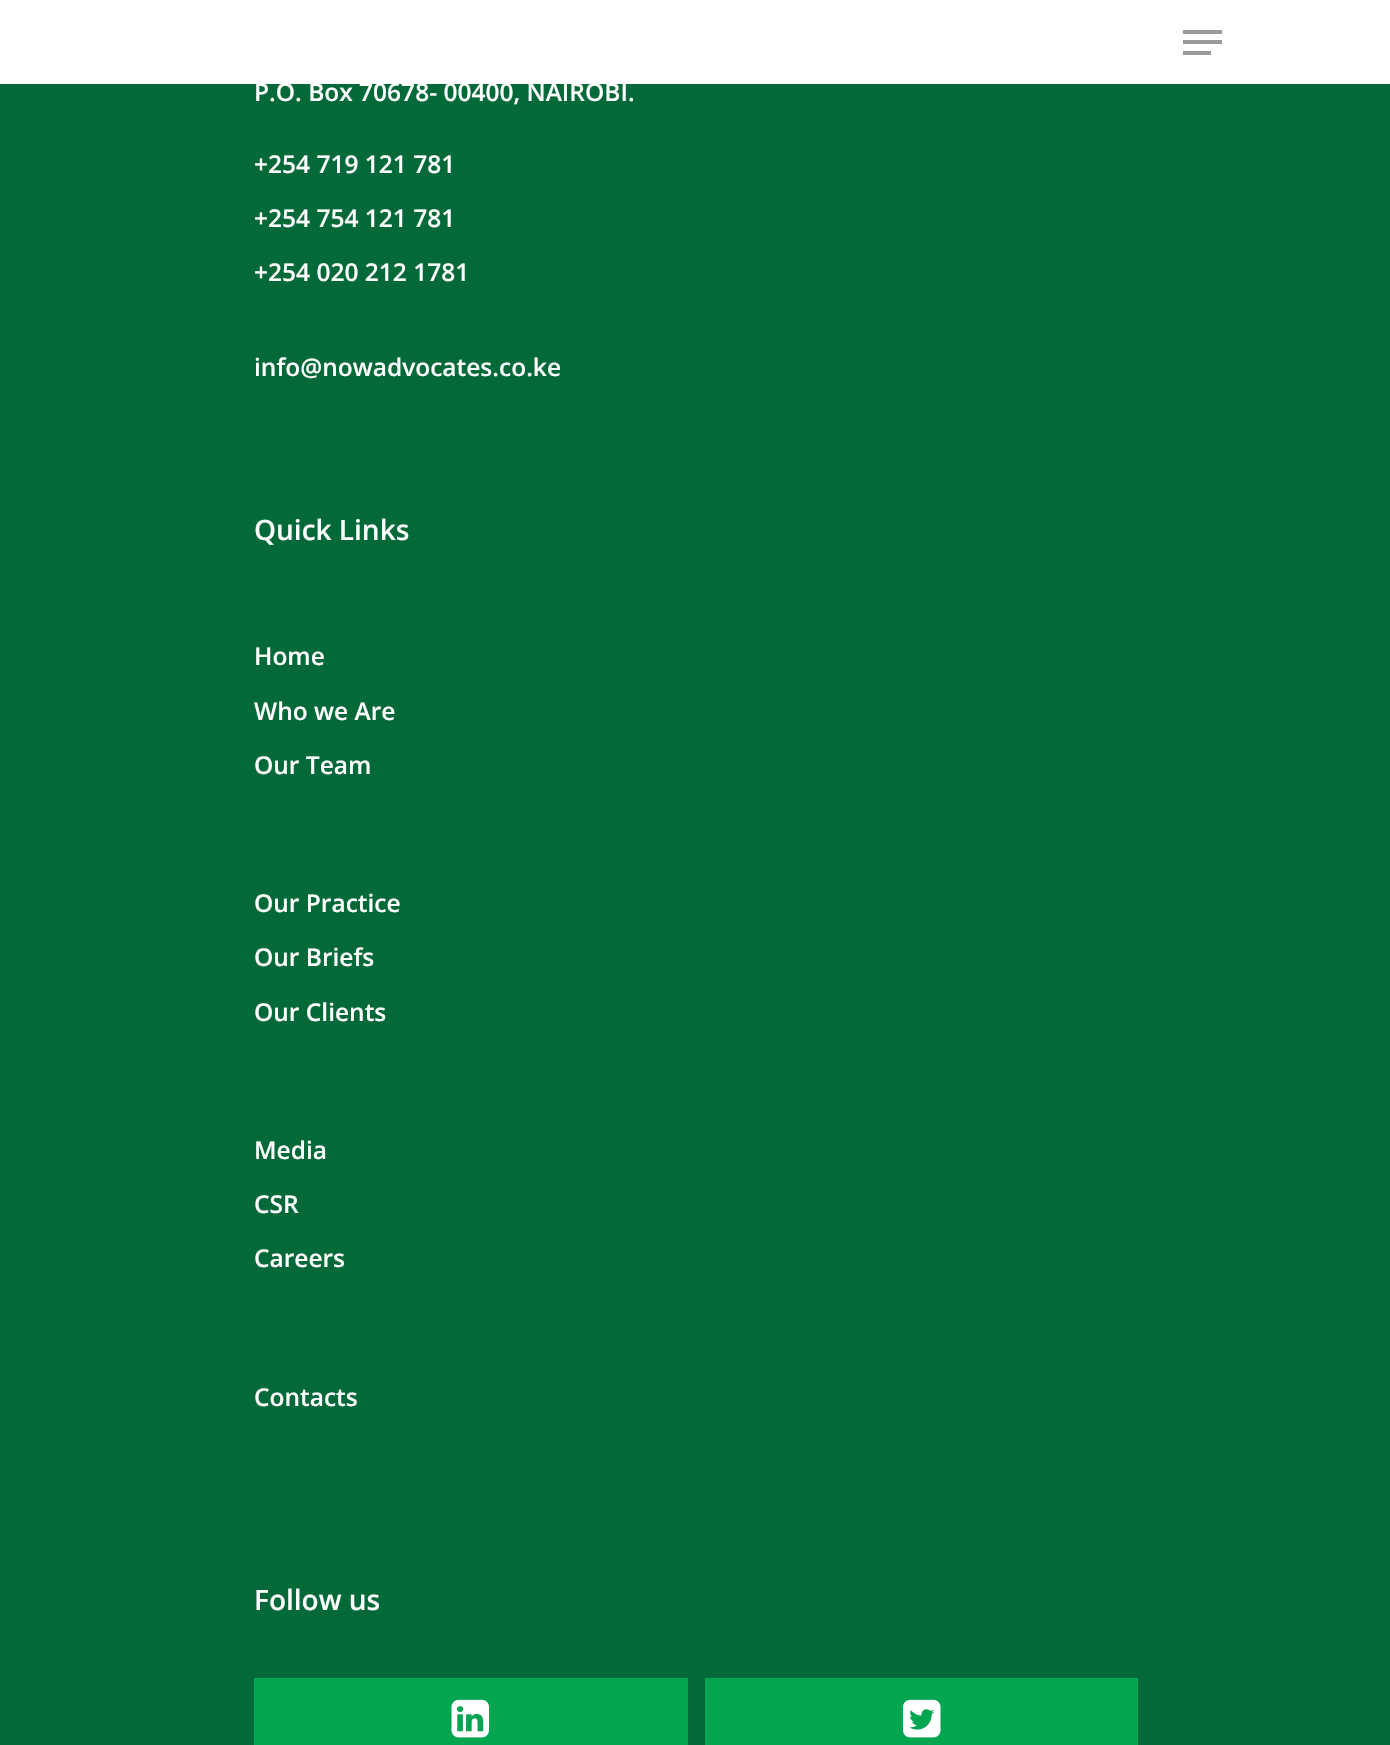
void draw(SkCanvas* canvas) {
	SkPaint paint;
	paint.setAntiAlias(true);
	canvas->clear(0xff046938);
	paint.setColor(0xffffffff);
	canvas->drawRect(SkRect::MakeXYWH(0, 0, 1390, 84), paint);
	paint.setColor(0xff999999);
	canvas->drawRect(SkRect::MakeXYWH(1183, 30, 39, 4), paint);
	canvas->drawRect(SkRect::MakeXYWH(1183, 51, 28, 4), paint);
	canvas->drawRect(SkRect::MakeXYWH(1183, 40, 39, 4), paint);
	SkFont f1(fontMgr->matchFamilyStyle("Open Sans", SkFontStyle(600, SkFontStyle::kNormal_Width, SkFontStyle::kUpright_Slant)), 24.5);
	f1.setSubpixel(true);
	paint.setColor(0xffffffff);
	canvas->drawString("P.O. Box 70678- 00400, NAIROBI.", 254, 101, f1, paint);
	canvas->drawString("+254 719 121 781", 254, 173, f1, paint);
	canvas->drawString("+254 754 121 781", 254, 227, f1, paint);
	canvas->drawString("+254 020 212 1781", 254, 281, f1, paint);
	canvas->drawString("info@nowadvocates.co.ke", 254, 376, f1, paint);
	SkFont f2(fontMgr->matchFamilyStyle("Open Sans", SkFontStyle(600, SkFontStyle::kNormal_Width, SkFontStyle::kUpright_Slant)), 28);
	f2.setSubpixel(true);
	canvas->drawString("Quick Links", 254, 540, f2, paint);
	canvas->drawString("Home", 254, 665, f1, paint);
	canvas->drawString("Who we Are", 254, 720, f1, paint);
	canvas->drawString("Our Team", 254, 774, f1, paint);
	canvas->drawString("Our Practice", 254, 912, f1, paint);
	canvas->drawString("Our Briefs", 254, 966, f1, paint);
	canvas->drawString("Our Clients", 254, 1021, f1, paint);
	canvas->drawString("Media", 254, 1159, f1, paint);
	canvas->drawString("CSR", 254, 1213, f1, paint);
	canvas->drawString("Careers", 254, 1267, f1, paint);
	canvas->drawString("Contacts", 254, 1406, f1, paint);
	canvas->drawString("Follow us", 254, 1610, f2, paint);
	paint.setColor(0xff03a550);
	canvas->drawRect(SkRect::MakeXYWH(254, 1678, 434, 67), paint);
	canvas->drawImageRect(SkImages::DeferredFromEncodedData(SkData::MakeFromFileName("img1.png")), SkRect::MakeXYWH(451, 1699, 38, 39), SkSamplingOptions());
	canvas->drawRect(SkRect::MakeXYWH(705, 1678, 433, 67), paint);
	canvas->drawImageRect(SkImages::DeferredFromEncodedData(SkData::MakeFromFileName("img2.png")), SkRect::MakeXYWH(903, 1699, 38, 39), SkSamplingOptions());
}
